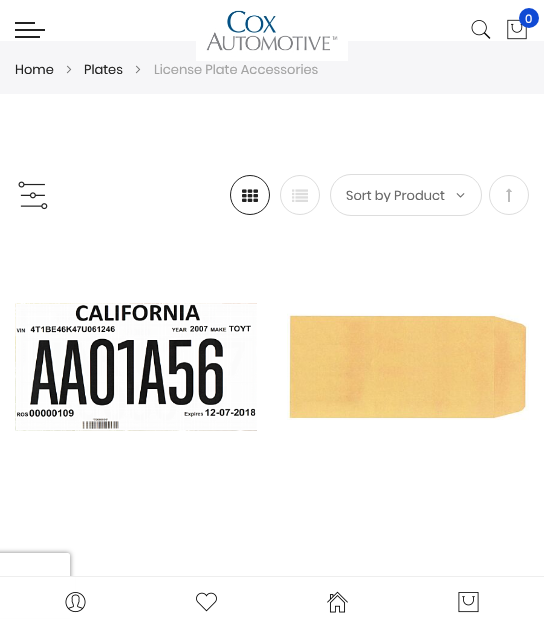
void draw(SkCanvas* canvas) {
	SkPaint paint;
	paint.setAntiAlias(true);
	auto svgPath = [&](const char* data, bool evenOdd = false) {
		SkPath result = *SkParsePath::FromSVGString(data);
		if (evenOdd) result.setFillType(SkPathFillType::kEvenOdd);
		return result;
	};
	canvas->clear(0xffffffff);
	paint.setColor(0xfff6f6f8);
	canvas->drawRect(SkRect::MakeXYWH(0, 41, 544, 53), paint);
	canvas->drawImageRect(SkImages::DeferredFromEncodedData(SkData::MakeFromFileName("img1.png")), SkRect::MakeXYWH(196, 10, 152, 51), SkSamplingOptions());
	canvas->drawImageRect(SkImages::DeferredFromEncodedData(SkData::MakeFromFileName("img2.png")), SkRect::MakeXYWH(507, 19, 20, 21), SkSamplingOptions());
	paint.setColor(0xff104ad4);
	canvas->drawCircle(529, 18, 10, paint);
	SkFont f1(fontMgr->matchFamilyStyle("Poppins", SkFontStyle::Normal()), 12);
	f1.setSubpixel(true);
	paint.setColor(0xffffffff);
	canvas->drawString("0", 525, 23, f1, paint);
	canvas->drawImageRect(SkImages::DeferredFromEncodedData(SkData::MakeFromFileName("img3.png")), SkRect::MakeXYWH(471, 20, 20, 19), SkSamplingOptions());
	paint.setColor(0xff222222);
	canvas->drawRect(SkRect::MakeXYWH(15, 22, 20, 2), paint);
	canvas->drawRect(SkRect::MakeXYWH(15, 29, 30, 2), paint);
	canvas->drawRect(SkRect::MakeXYWH(15, 36, 25, 2), paint);
	canvas->save();
	canvas->clipPath(svgPath("M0 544H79V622H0ZM-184 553H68C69 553 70 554 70 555V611C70 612 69 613 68 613H-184C-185 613-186 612-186 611V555C-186 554-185 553-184 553Z", true), true);
	paint.setColor(0xff808080);
	paint.setMaskFilter(SkMaskFilter::MakeBlur(kNormal_SkBlurStyle, 2.5));
	canvas->drawRoundRect(SkRect::MakeXYWH(-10, 553, 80, 60), 2, 2, paint);
	paint.setMaskFilter(nullptr);
	canvas->restore();
	paint.setColor(0xffffffff);
	canvas->drawRect(SkRect::MakeXYWH(0, 577, 75, 41), paint);
	paint.setColor(0xffeeeeee);
	canvas->drawRect(SkRect::MakeXYWH(0, 576, 544, 1), paint);
	canvas->drawImageRect(SkImages::DeferredFromEncodedData(SkData::MakeFromFileName("img4.png")), SkRect::MakeXYWH(65, 592, 21, 21), SkSamplingOptions());
	canvas->drawImageRect(SkImages::DeferredFromEncodedData(SkData::MakeFromFileName("img5.png")), SkRect::MakeXYWH(196, 592, 21, 20), SkSamplingOptions());
	canvas->drawImageRect(SkImages::DeferredFromEncodedData(SkData::MakeFromFileName("img6.png")), SkRect::MakeXYWH(327, 591, 21, 22), SkSamplingOptions());
	canvas->drawImageRect(SkImages::DeferredFromEncodedData(SkData::MakeFromFileName("img7.png")), SkRect::MakeXYWH(458, 592, 21, 21), SkSamplingOptions());
	SkFont f2(fontMgr->matchFamilyStyle("Poppins", SkFontStyle::Normal()), 13);
	f2.setSubpixel(true);
	paint.setColor(0xff222222);
	canvas->drawString("Home", 15, 74, f2, paint);
	canvas->drawImageRect(SkImages::DeferredFromEncodedData(SkData::MakeFromFileName("img8.png")), SkRect::MakeXYWH(66, 65, 6, 9), SkSamplingOptions());
	canvas->drawString("Plates", 84, 74, f2, paint);
	canvas->drawImageRect(SkImages::DeferredFromEncodedData(SkData::MakeFromFileName("img8.png")), SkRect::MakeXYWH(135, 65, 6, 9), SkSamplingOptions());
	paint.setColor(0xffa3a3a3);
	canvas->drawString("License Plate Accessories", 154, 74, f2, paint);
	canvas->drawImageRect(SkImages::DeferredFromEncodedData(SkData::MakeFromFileName("img9.png")), SkRect::MakeXYWH(18, 181, 30, 29), SkSamplingOptions());
	paint.setStroke(true);
	paint.setStrokeWidth(1);
	paint.setColor(0xff222222);
	canvas->drawCircle(250, 195, 19.5, paint);
	canvas->drawImageRect(SkImages::DeferredFromEncodedData(SkData::MakeFromFileName("img10.png")), SkRect::MakeXYWH(242, 189, 16, 13), SkSamplingOptions());
	paint.setColor(0xffdddddd);
	canvas->drawCircle(300, 195, 19.5, paint);
	canvas->drawImageRect(SkImages::DeferredFromEncodedData(SkData::MakeFromFileName("img11.png")), SkRect::MakeXYWH(292, 189, 16, 13), SkSamplingOptions());
	canvas->drawRoundRect(SkRect::MakeXYWH(330.5, 174.5, 151, 41), 20.5, 20.5, paint);
	canvas->save();
	canvas->clipRect(SkRect::MakeXYWH(346, 189, 105, 13));
	paint.setStroke(false);
	paint.setColor(0xff696969);
	canvas->drawString("Sort by Product", 346, 200, f2, paint);
	canvas->restore();
	canvas->drawImageRect(SkImages::DeferredFromEncodedData(SkData::MakeFromFileName("img12.png")), SkRect::MakeXYWH(456, 193, 9, 5), SkSamplingOptions());
	paint.setStroke(true);
	paint.setColor(0xffdddddd);
	canvas->drawCircle(509, 195, 19.5, paint);
	canvas->drawImageRect(SkImages::DeferredFromEncodedData(SkData::MakeFromFileName("img13.png")), SkRect::MakeXYWH(506, 188, 6, 14), SkSamplingOptions());
	canvas->drawImageRect(SkImages::DeferredFromEncodedData(SkData::MakeFromFileName("img14.png")), SkRect::MakeXYWH(15, 303, 242, 128), SkSamplingOptions());
	canvas->drawImageRect(SkImages::DeferredFromEncodedData(SkData::MakeFromFileName("img15.png")), SkRect::MakeXYWH(287, 313, 242, 107), SkSamplingOptions());
}
